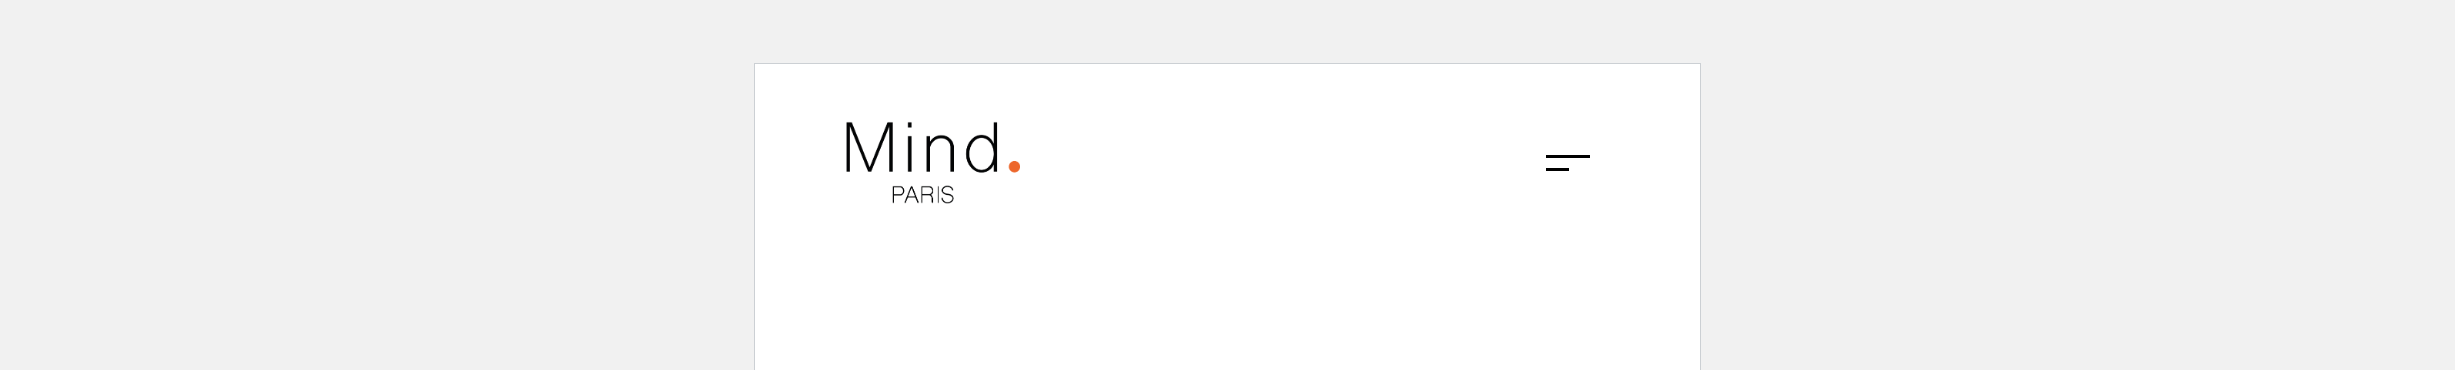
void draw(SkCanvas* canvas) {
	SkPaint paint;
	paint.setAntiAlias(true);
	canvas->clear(0xfff1f1f1);
	paint.setColor(0xffffffff);
	canvas->drawRect(SkRect::MakeXYWH(754.5, 63.5, 946, 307), paint);
	paint.setStroke(true);
	paint.setStrokeWidth(1);
	paint.setColor(0xffccd0d4);
	canvas->drawRect(SkRect::MakeXYWH(754.5, 63.5, 946, 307), paint);
	canvas->drawImageRect(SkImages::DeferredFromEncodedData(SkData::MakeFromFileName("img1.png")), SkRect::MakeXYWH(846, 121, 174, 83), SkSamplingOptions());
	paint.setStroke(false);
	paint.setColor(0xff000000);
	canvas->drawRect(SkRect::MakeXYWH(1546, 155, 44, 3), paint);
	canvas->drawRect(SkRect::MakeXYWH(1546, 168, 23, 3), paint);
}
